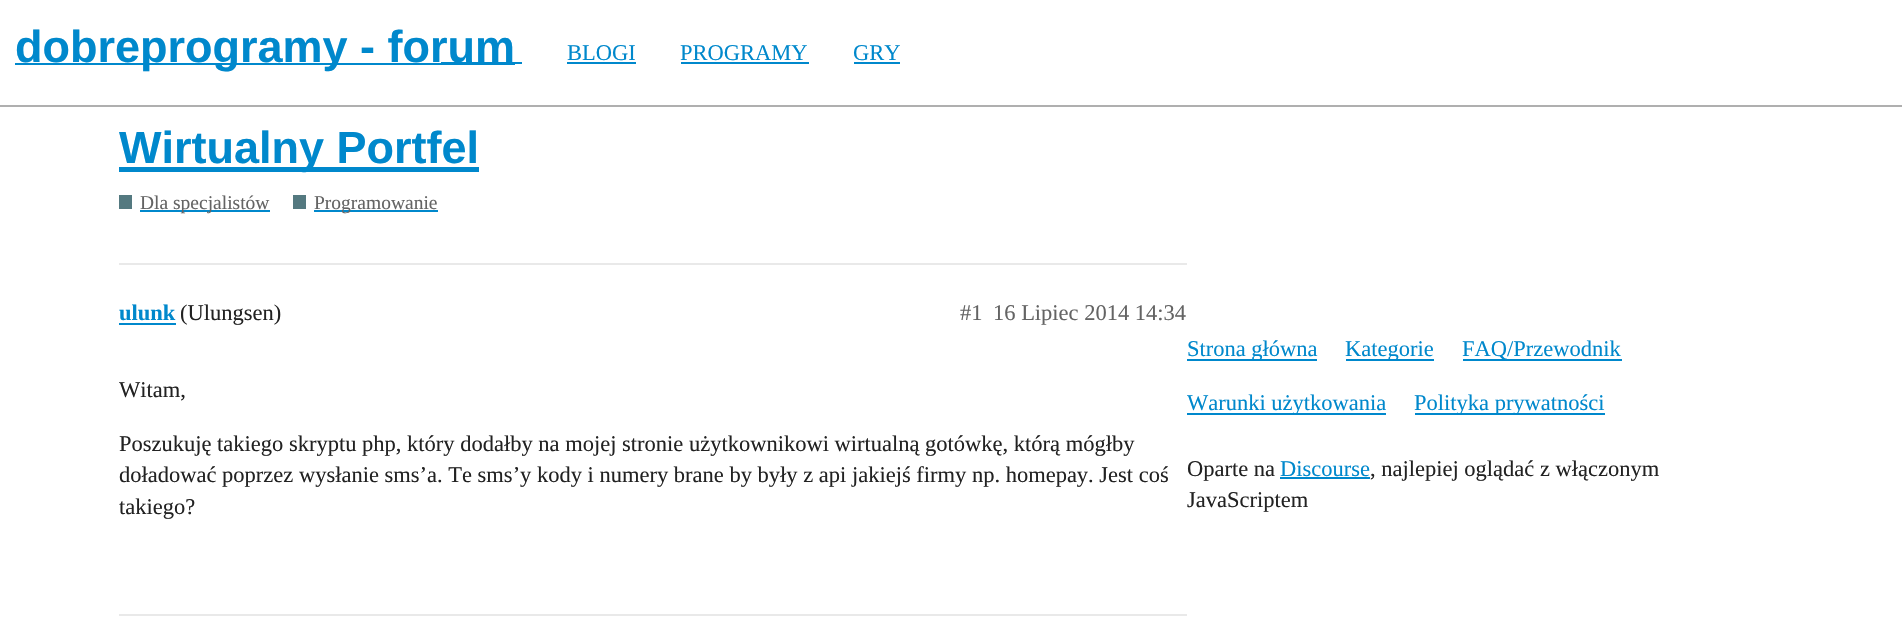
void draw(SkCanvas* canvas) {
	SkPaint paint;
	paint.setAntiAlias(true);
	canvas->clear(0xffffffff);
	paint.setColor(0xffafafaf);
	canvas->drawRect(SkRect::MakeXYWH(0, 105, 1902, 2), paint);
	paint.setColor(0xff0088cc);
	canvas->drawRect(SkRect::MakeXYWH(15, 63, 500, 2), paint);
	SkFont f1(fontMgr->matchFamilyStyle("Liberation Sans", SkFontStyle::Bold()), 45);
	f1.setSubpixel(true);
	canvas->drawString("dobreprogramy - forum", 15, 62, f1, paint);
	SkFont f2(fontMgr->matchFamilyStyle("Liberation Serif", SkFontStyle::Normal()), 22.5);
	f2.setSubpixel(true);
	canvas->drawString("BLOGI", 567, 60, f2, paint);
	canvas->drawRect(SkRect::MakeXYWH(567, 62, 69, 2), paint);
	canvas->drawString("PROGRAMY", 680, 60, f2, paint);
	canvas->drawRect(SkRect::MakeXYWH(681, 62, 128, 2), paint);
	canvas->drawString("GRY", 853, 60, f2, paint);
	canvas->drawRect(SkRect::MakeXYWH(854, 62, 46, 2), paint);
	canvas->drawRect(SkRect::MakeXYWH(441, 62, 81, 2), paint);
	canvas->drawRect(SkRect::MakeXYWH(119, 167, 360, 5), paint);
	canvas->drawString("Wirtualny Portfel", 119, 163, f1, paint);
	paint.setColor(0xff547980);
	canvas->drawRect(SkRect::MakeXYWH(119, 195, 13, 14), paint);
	paint.setColor(0xff0088cc);
	canvas->drawRect(SkRect::MakeXYWH(140, 210, 130, 2), paint);
	SkFont f3(fontMgr->matchFamilyStyle("Liberation Serif", SkFontStyle::Normal()), 19.5);
	f3.setSubpixel(true);
	paint.setColor(0xff646464);
	canvas->drawString("Dla specjalistów", 140, 209, f3, paint);
	paint.setColor(0xff547980);
	canvas->drawRect(SkRect::MakeXYWH(293, 195, 13, 14), paint);
	paint.setColor(0xff0088cc);
	canvas->drawRect(SkRect::MakeXYWH(314, 210, 124, 2), paint);
	paint.setColor(0xff646464);
	canvas->drawString("Programowanie", 314, 209, f3, paint);
	paint.setColor(0xffe9e9e9);
	canvas->drawRect(SkRect::MakeXYWH(119, 263, 1068, 2), paint);
	SkFont f4(fontMgr->matchFamilyStyle("Liberation Serif", SkFontStyle::Bold()), 22.5);
	f4.setSubpixel(true);
	paint.setColor(0xff0088cc);
	canvas->drawString("ulunk", 119, 320, f4, paint);
	canvas->drawRect(SkRect::MakeXYWH(119, 323, 57, 2), paint);
	paint.setColor(0xff222222);
	canvas->drawString("(Ulungsen)", 180, 320, f2, paint);
	paint.setColor(0xff646464);
	canvas->drawString("#1", 960, 320, f2, paint);
	canvas->drawString("16 Lipiec 2014 14:34", 993, 320, f2, paint);
	paint.setColor(0xff222222);
	canvas->drawString("Witam,", 119, 397, f2, paint);
	canvas->drawString("Poszukuję takiego skryptu php, który dodałby na mojej stronie użytkownikowi wirtualną gotówkę, którą mógłby", 119, 451, f2, paint);
	canvas->drawString("doładować poprzez wysłanie sms’a. Te sms’y kody i numery brane by były z api jakiejś firmy np. homepay. Jest coś", 119, 482, f2, paint);
	canvas->drawString("takiego?", 119, 514, f2, paint);
	paint.setColor(0xffe9e9e9);
	canvas->drawRect(SkRect::MakeXYWH(119, 614, 1068, 2), paint);
	paint.setColor(0xff0088cc);
	canvas->drawRect(SkRect::MakeXYWH(1187, 359, 130, 2), paint);
	canvas->drawString("Strona główna", 1187, 356, f2, paint);
	canvas->drawRect(SkRect::MakeXYWH(1346, 359, 88, 2), paint);
	canvas->drawString("Kategorie", 1345, 356, f2, paint);
	canvas->drawRect(SkRect::MakeXYWH(1463, 359, 159, 2), paint);
	canvas->drawString("FAQ/Przewodnik", 1462, 356, f2, paint);
	canvas->drawRect(SkRect::MakeXYWH(1187, 413, 199, 2), paint);
	canvas->drawString("Warunki użytkowania", 1187, 410, f2, paint);
	canvas->drawRect(SkRect::MakeXYWH(1415, 413, 190, 2), paint);
	canvas->drawString("Polityka prywatności", 1414, 410, f2, paint);
	paint.setColor(0xff222222);
	canvas->drawString("Oparte na", 1187, 476, f2, paint);
	paint.setColor(0xff0088cc);
	canvas->drawString("Discourse", 1280, 476, f2, paint);
	canvas->drawRect(SkRect::MakeXYWH(1280, 477, 90, 2), paint);
	paint.setColor(0xff222222);
	canvas->drawString(", najlepiej oglądać z włączonym", 1370, 476, f2, paint);
	canvas->drawString("JavaScriptem", 1187, 507, f2, paint);
}
